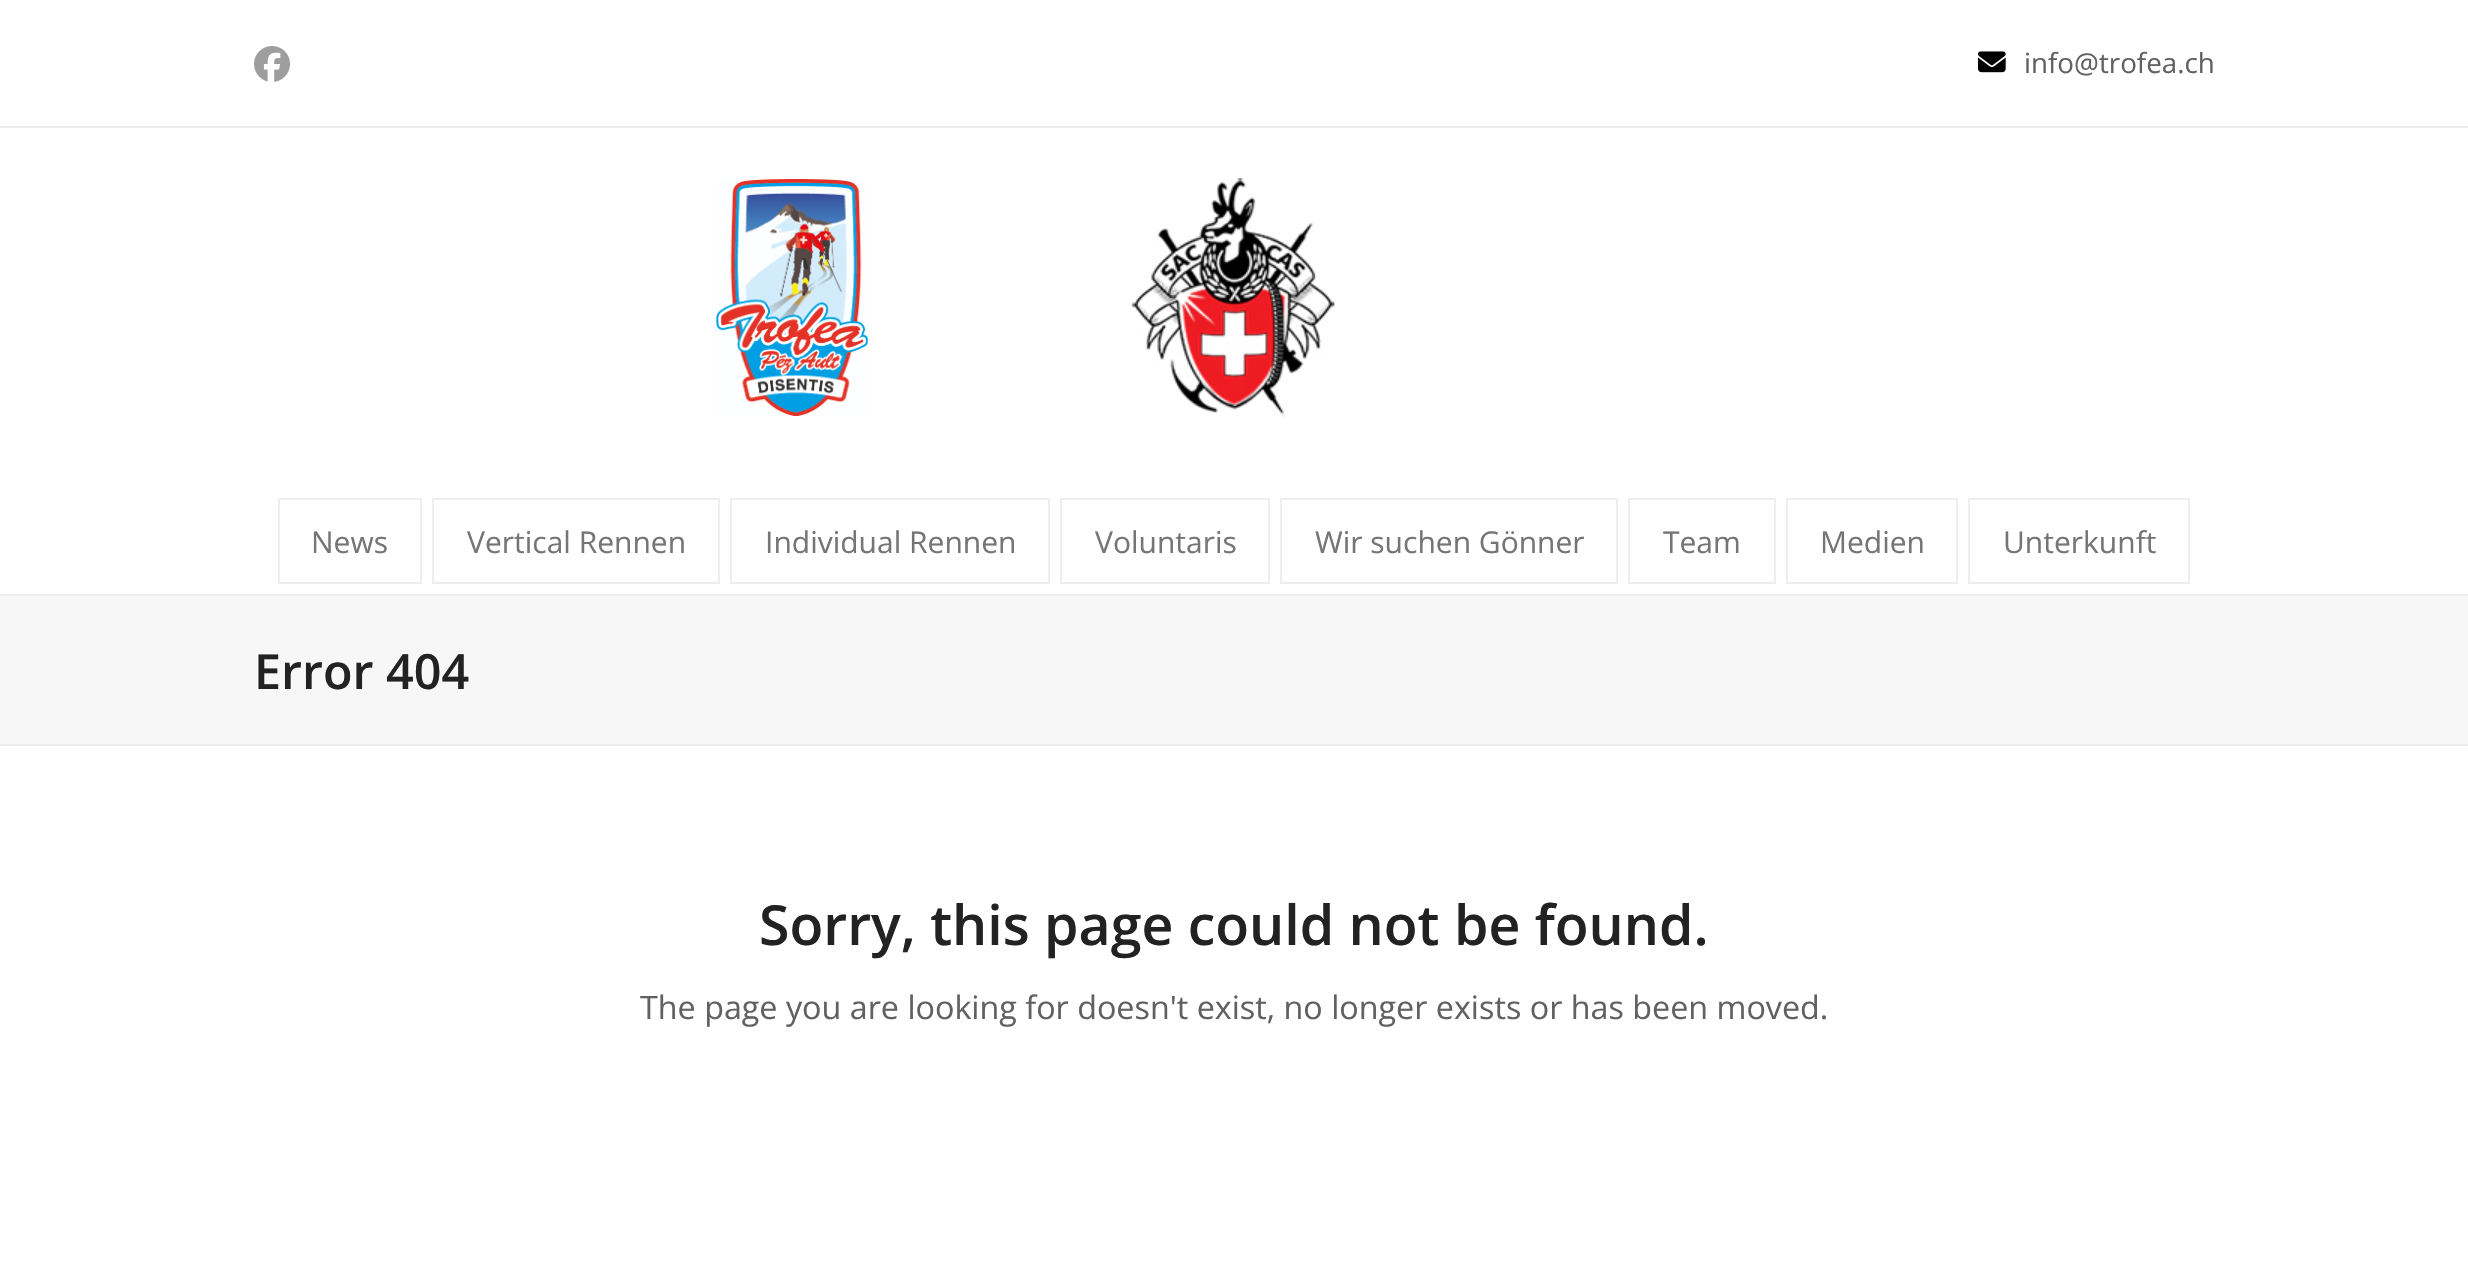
void draw(SkCanvas* canvas) {
	SkPaint paint;
	paint.setAntiAlias(true);
	canvas->clear(0xffffffff);
	paint.setColor(0xffeeeeee);
	canvas->drawRect(SkRect::MakeXYWH(0, 126, 2468, 2), paint);
	canvas->drawImageRect(SkImages::DeferredFromEncodedData(SkData::MakeFromFileName("img1.png")), SkRect::MakeXYWH(254, 46, 36, 36), SkSamplingOptions());
	canvas->drawImageRect(SkImages::DeferredFromEncodedData(SkData::MakeFromFileName("img2.png")), SkRect::MakeXYWH(1978, 51, 28, 22), SkSamplingOptions());
	SkFont f1(fontMgr->matchFamilyStyle("Open Sans", SkFontStyle::Normal()), 27.75);
	f1.setSubpixel(true);
	paint.setColor(0xff616161);
	canvas->drawString("info@trofea.ch", 2024, 73, f1, paint);
	canvas->drawImageRect(SkImages::DeferredFromEncodedData(SkData::MakeFromFileName("img3.png")), SkRect::MakeXYWH(716, 179, 152, 237), SkSamplingOptions());
	canvas->drawImageRect(SkImages::DeferredFromEncodedData(SkData::MakeFromFileName("img4.png")), SkRect::MakeXYWH(1131, 178, 204, 240), SkSamplingOptions());
	paint.setStroke(true);
	paint.setStrokeWidth(2);
	paint.setColor(0xffeeeeee);
	canvas->drawRect(SkRect::MakeXYWH(279, 499, 142, 84), paint);
	SkFont f2(fontMgr->matchFamilyStyle("Open Sans", SkFontStyle::Normal()), 30);
	f2.setSubpixel(true);
	paint.setStroke(false);
	paint.setColor(0xff757575);
	canvas->drawString("News", 311, 553, f2, paint);
	paint.setStroke(true);
	paint.setColor(0xffeeeeee);
	canvas->drawRect(SkRect::MakeXYWH(433, 499, 286, 84), paint);
	paint.setStroke(false);
	paint.setColor(0xff757575);
	canvas->drawString("Vertical Rennen", 467, 553, f2, paint);
	paint.setStroke(true);
	paint.setColor(0xffeeeeee);
	canvas->drawRect(SkRect::MakeXYWH(731, 499, 318, 84), paint);
	paint.setStroke(false);
	paint.setColor(0xff757575);
	canvas->drawString("Individual Rennen", 765, 553, f2, paint);
	paint.setStroke(true);
	paint.setColor(0xffeeeeee);
	canvas->drawRect(SkRect::MakeXYWH(1061, 499, 208, 84), paint);
	paint.setStroke(false);
	paint.setColor(0xff757575);
	canvas->drawString("Voluntaris", 1095, 553, f2, paint);
	paint.setStroke(true);
	paint.setColor(0xffeeeeee);
	canvas->drawRect(SkRect::MakeXYWH(1281, 499, 336, 84), paint);
	paint.setStroke(false);
	paint.setColor(0xff757575);
	canvas->drawString("Wir suchen Gönner", 1315, 553, f2, paint);
	paint.setStroke(true);
	paint.setColor(0xffeeeeee);
	canvas->drawRect(SkRect::MakeXYWH(1629, 499, 146, 84), paint);
	paint.setStroke(false);
	paint.setColor(0xff757575);
	canvas->drawString("Team", 1663, 553, f2, paint);
	paint.setStroke(true);
	paint.setColor(0xffeeeeee);
	canvas->drawRect(SkRect::MakeXYWH(1787, 499, 170, 84), paint);
	paint.setStroke(false);
	paint.setColor(0xff757575);
	canvas->drawString("Medien", 1820, 553, f2, paint);
	paint.setStroke(true);
	paint.setColor(0xffeeeeee);
	canvas->drawRect(SkRect::MakeXYWH(1969, 499, 220, 84), paint);
	paint.setStroke(false);
	paint.setColor(0xff757575);
	canvas->drawString("Unterkunft", 2003, 553, f2, paint);
	paint.setColor(0xfff7f7f7);
	canvas->drawRect(SkRect::MakeXYWH(0, 596, 2468, 148), paint);
	paint.setColor(0xffeeeeee);
	canvas->drawRect(SkRect::MakeXYWH(0, 594, 2468, 2), paint);
	canvas->drawRect(SkRect::MakeXYWH(0, 744, 2468, 2), paint);
	SkFont f3(fontMgr->matchFamilyStyle("Open Sans", SkFontStyle(600, SkFontStyle::kNormal_Width, SkFontStyle::kUpright_Slant)), 48.5);
	f3.setSubpixel(true);
	paint.setColor(0xff222222);
	canvas->drawString("Error 404", 254, 689, f3, paint);
	SkFont f4(fontMgr->matchFamilyStyle("Open Sans", SkFontStyle(600, SkFontStyle::kNormal_Width, SkFontStyle::kUpright_Slant)), 55.4);
	f4.setSubpixel(true);
	canvas->drawString("Sorry, this page could not be found.", 759, 945, f4, paint);
	SkFont f5(fontMgr->matchFamilyStyle("Open Sans", SkFontStyle::Normal()), 32.3);
	f5.setSubpixel(true);
	paint.setColor(0xff616161);
	canvas->drawString("The page you are looking for doesn't exist, no longer exists or has been moved.", 640, 1019, f5, paint);
}
